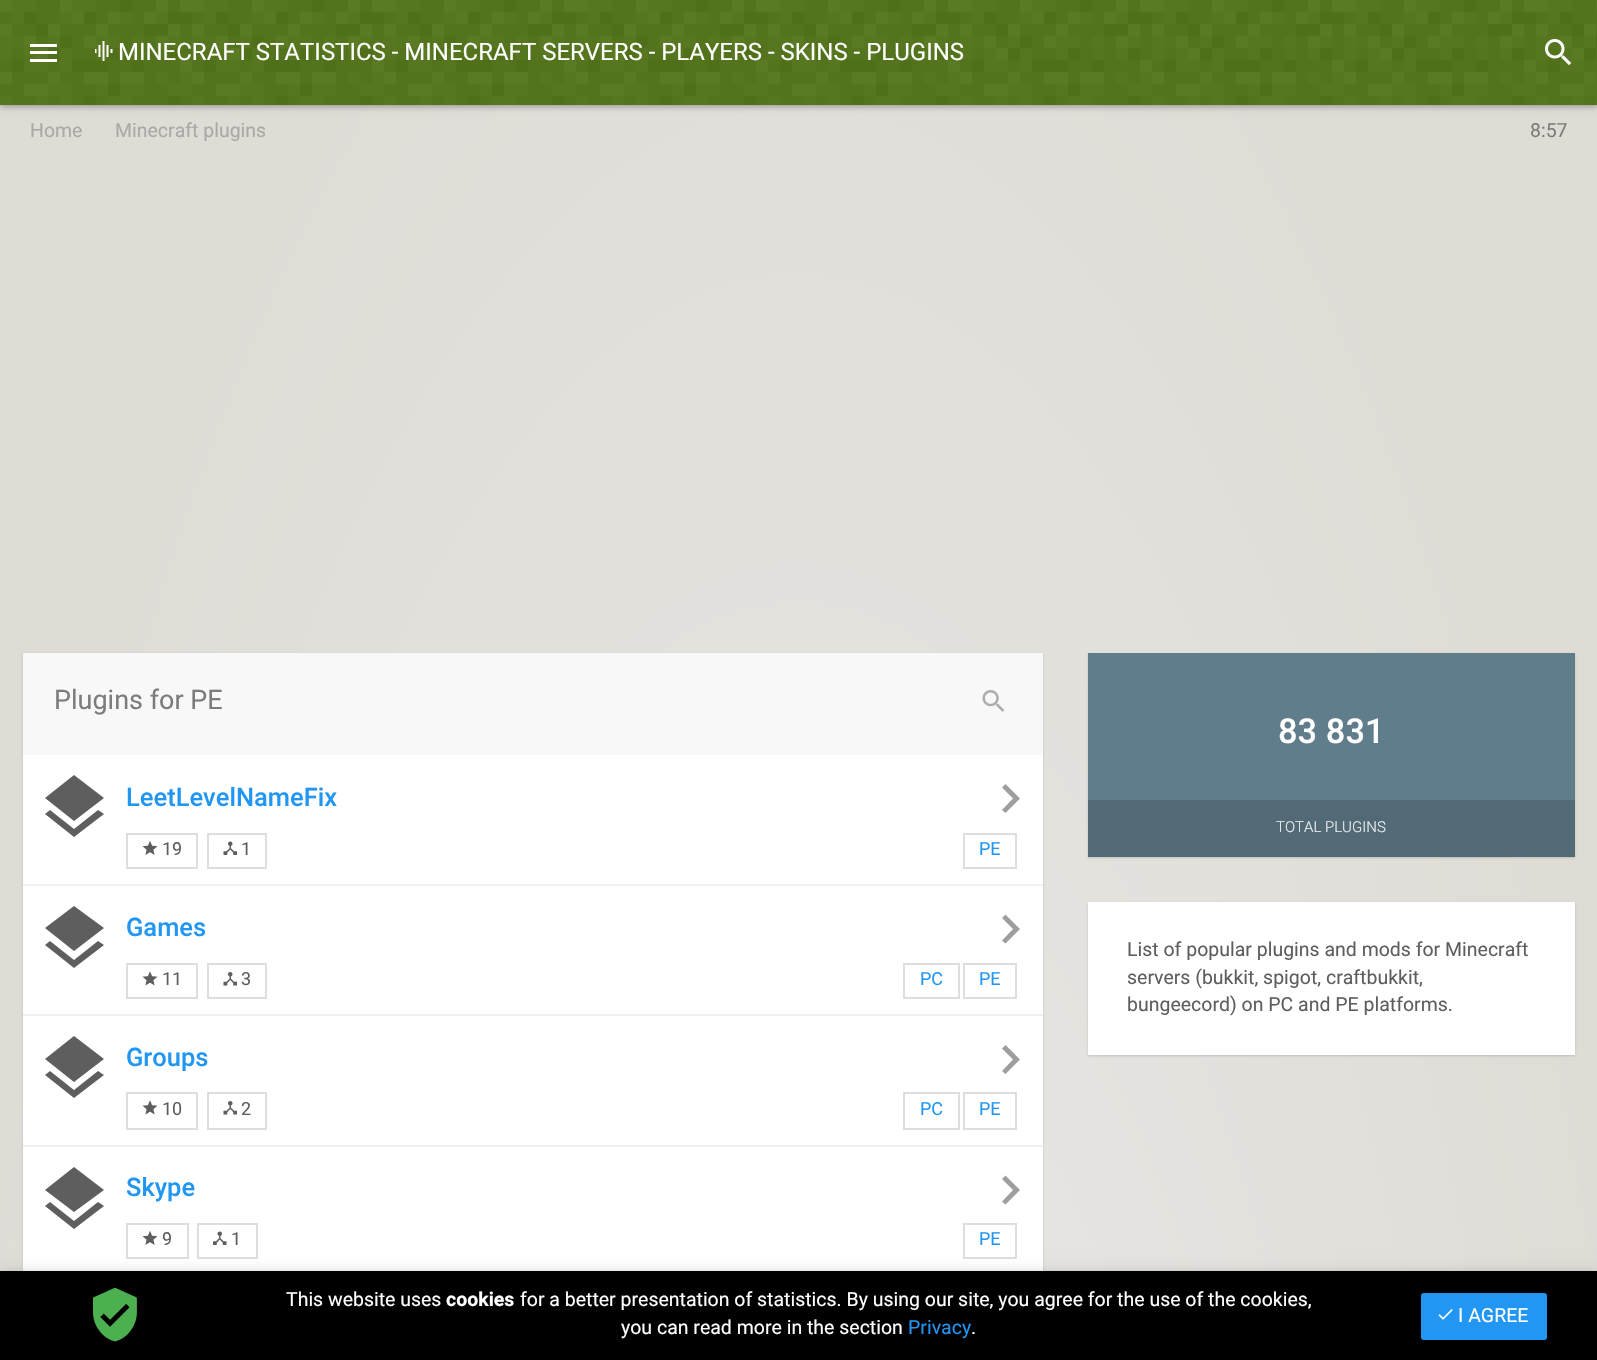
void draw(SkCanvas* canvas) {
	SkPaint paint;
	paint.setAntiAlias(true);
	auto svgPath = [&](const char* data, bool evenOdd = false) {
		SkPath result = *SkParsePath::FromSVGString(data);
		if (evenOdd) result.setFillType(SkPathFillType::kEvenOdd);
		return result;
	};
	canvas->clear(0xffffffff);
	{
		const SkColor colors[] = {0xffedecec, 0xffdedcd5};
		const float stops[] = {0, 0.8};
		SkMatrix m = SkMatrix::Translate(799, 2357).preScale(1130, 3334);
		paint.setShader(SkGradientShader::MakeRadial({0, 0}, 1, colors, stops, 2, SkTileMode::kClamp, 0, &m));
		paint.setAlpha(255);
	}
	canvas->drawRect(SkRect::MakeXYWH(0, 105, 1597, 1166), paint);
	paint.setShader(nullptr);
	paint.setColor(0x4d000000);
	paint.setMaskFilter(SkMaskFilter::MakeBlur(kNormal_SkBlurStyle, 3));
	canvas->drawRect(SkRect::MakeXYWH(0, 2, 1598, 105), paint);
	paint.setMaskFilter(nullptr);
	paint.setColor(0xff527711);
	canvas->drawRect(SkRect::MakeXYWH(0, 0, 1597, 105), paint);
	canvas->drawImageRect(SkImages::DeferredFromEncodedData(SkData::MakeFromFileName("img1.png")), SkRect::MakeXYWH(0, 0, 1597, 105), SkSamplingOptions());
	paint.setColor(0xffffffff);
	canvas->drawRect(SkRect::MakeXYWH(30, 44, 27, 3), paint);
	canvas->drawRect(SkRect::MakeXYWH(30, 51, 27, 3), paint);
	canvas->drawRect(SkRect::MakeXYWH(30, 59, 27, 3), paint);
	canvas->drawImageRect(SkImages::DeferredFromEncodedData(SkData::MakeFromFileName("img2.png")), SkRect::MakeXYWH(95, 41, 18, 20), SkSamplingOptions());
	SkFont f1(fontMgr->matchFamilyStyle("Roboto", SkFontStyle::Normal()), 24);
	f1.setSubpixel(true);
	canvas->drawString("MINECRAFT STATISTICS - MINECRAFT SERVERS - PLAYERS - SKINS - PLUGINS", 118, 60, f1, paint);
	canvas->drawImageRect(SkImages::DeferredFromEncodedData(SkData::MakeFromFileName("img3.png")), SkRect::MakeXYWH(1545, 39, 27, 27), SkSamplingOptions());
	SkFont f2(fontMgr->matchFamilyStyle("Roboto", SkFontStyle::Normal()), 19.5);
	f2.setSubpixel(true);
	paint.setColor(0xffa9a9a9);
	canvas->drawString("Home", 30, 137, f2, paint);
	canvas->drawString("Minecraft plugins", 115, 137, f2, paint);
	paint.setColor(0xff7c7c7c);
	canvas->drawString("8:57", 1530, 137, f2, paint);
	paint.setColor(0x26000000);
	paint.setMaskFilter(SkMaskFilter::MakeBlur(kNormal_SkBlurStyle, 1));
	canvas->drawRect(SkRect::MakeXYWH(23, 654, 1020, 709), paint);
	paint.setMaskFilter(nullptr);
	paint.setColor(0xffffffff);
	canvas->drawRect(SkRect::MakeXYWH(23, 755, 1020, 516), paint);
	paint.setColor(0xfff8f8f8);
	canvas->drawRect(SkRect::MakeXYWH(23, 653, 1020, 102), paint);
	SkFont f3(fontMgr->matchFamilyStyle("Roboto", SkFontStyle::Normal()), 27);
	f3.setSubpixel(true);
	paint.setColor(0xff7c7c7c);
	canvas->drawString("Plugins for PE", 54, 709, f3, paint);
	canvas->drawImageRect(SkImages::DeferredFromEncodedData(SkData::MakeFromFileName("img4.png")), SkRect::MakeXYWH(982, 690, 23, 22), SkSamplingOptions());
	paint.setColor(0xfff0f0f0);
	canvas->drawRect(SkRect::MakeXYWH(23, 884, 1020, 2), paint);
	paint.setColor(0xff5e5e5e);
	canvas->drawPath(svgPath("M74 829L98 810L104 814L74 837L45 814L50 810ZM74 821L45 798L74 775L104 798Z"), paint);
	SkFont f4(fontMgr->matchFamilyStyle("Roboto", SkFontStyle(500, SkFontStyle::kNormal_Width, SkFontStyle::kUpright_Slant)), 25.5);
	f4.setSubpixel(true);
	paint.setColor(0xff2196f3);
	canvas->drawString("LeetLevelNameFix", 126, 806, f4, paint);
	paint.setStroke(true);
	paint.setStrokeWidth(2);
	paint.setColor(0xffdedede);
	canvas->drawRect(SkRect::MakeXYWH(127, 834, 70, 34), paint);
	canvas->drawImageRect(SkImages::DeferredFromEncodedData(SkData::MakeFromFileName("img5.png")), SkRect::MakeXYWH(142, 841, 16, 14), SkSamplingOptions());
	SkFont f5(fontMgr->matchFamilyStyle("Roboto", SkFontStyle::Normal()), 18);
	f5.setSubpixel(true);
	paint.setStroke(false);
	paint.setColor(0xff5e5e5e);
	canvas->drawString("19", 162, 855, f5, paint);
	paint.setStroke(true);
	paint.setColor(0xffdedede);
	canvas->drawRect(SkRect::MakeXYWH(208, 834, 58, 34), paint);
	canvas->drawImageRect(SkImages::DeferredFromEncodedData(SkData::MakeFromFileName("img6.png")), SkRect::MakeXYWH(223, 841, 14, 14), SkSamplingOptions());
	paint.setStroke(false);
	paint.setColor(0xff5e5e5e);
	canvas->drawString("1", 241, 855, f5, paint);
	paint.setStroke(true);
	paint.setColor(0xffdedede);
	canvas->drawRect(SkRect::MakeXYWH(964, 834, 52, 34), paint);
	paint.setStroke(false);
	paint.setColor(0xff2196f3);
	canvas->drawString("PE", 979, 855, f5, paint);
	paint.setColor(0xff9e9e9e);
	canvas->drawPath(svgPath("M1005.5 784L1020 798.5L1005.5 813L1002 810L1013 798.5L1002 787.5Z"), paint);
	paint.setColor(0xfff0f0f0);
	canvas->drawRect(SkRect::MakeXYWH(23, 1014, 1020, 2), paint);
	paint.setColor(0xff5e5e5e);
	canvas->drawPath(svgPath("M74 960L98 941L104 945L74 968L45 945L50 941ZM74 951L45 928L74 906L104 928Z"), paint);
	paint.setColor(0xff2196f3);
	canvas->drawString("Games", 126, 936, f4, paint);
	paint.setStroke(true);
	paint.setColor(0xffdedede);
	canvas->drawRect(SkRect::MakeXYWH(127, 964, 70, 34), paint);
	canvas->drawImageRect(SkImages::DeferredFromEncodedData(SkData::MakeFromFileName("img7.png")), SkRect::MakeXYWH(142, 971, 16, 15), SkSamplingOptions());
	paint.setStroke(false);
	paint.setColor(0xff5e5e5e);
	canvas->drawString("11", 162, 985, f5, paint);
	paint.setStroke(true);
	paint.setColor(0xffdedede);
	canvas->drawRect(SkRect::MakeXYWH(208, 964, 58, 34), paint);
	canvas->drawImageRect(SkImages::DeferredFromEncodedData(SkData::MakeFromFileName("img8.png")), SkRect::MakeXYWH(223, 972, 14, 14), SkSamplingOptions());
	paint.setStroke(false);
	paint.setColor(0xff5e5e5e);
	canvas->drawString("3", 241, 985, f5, paint);
	paint.setStroke(true);
	paint.setColor(0xffdedede);
	canvas->drawRect(SkRect::MakeXYWH(904, 964, 55, 34), paint);
	paint.setStroke(false);
	paint.setColor(0xff2196f3);
	canvas->drawString("PC", 920, 985, f5, paint);
	paint.setStroke(true);
	paint.setColor(0xffdedede);
	canvas->drawRect(SkRect::MakeXYWH(964, 964, 52, 34), paint);
	paint.setStroke(false);
	paint.setColor(0xff2196f3);
	canvas->drawString("PE", 979, 985, f5, paint);
	paint.setColor(0xff9e9e9e);
	canvas->drawPath(svgPath("M1005.5 914.5L1020 929L1005.5 943.5L1002 940.5L1013 929L1002 918Z"), paint);
	paint.setColor(0xfff0f0f0);
	canvas->drawRect(SkRect::MakeXYWH(23, 1145, 1020, 2), paint);
	paint.setColor(0xff5e5e5e);
	canvas->drawPath(svgPath("M74 1090L98 1071L104 1075L74 1098L45 1075L50 1071ZM74 1082L45 1059L74 1036L104 1059Z"), paint);
	canvas->save();
	canvas->clipRect(SkRect::MakeXYWH(126, 1044, 894, 27));
	paint.setColor(0xff2196f3);
	canvas->drawString("Groups", 126, 1066, f4, paint);
	canvas->restore();
	paint.setStroke(true);
	paint.setColor(0xffdedede);
	canvas->drawRect(SkRect::MakeXYWH(127, 1093, 70, 36), paint);
	canvas->drawImageRect(SkImages::DeferredFromEncodedData(SkData::MakeFromFileName("img7.png")), SkRect::MakeXYWH(142, 1100, 16, 15), SkSamplingOptions());
	paint.setStroke(false);
	paint.setColor(0xff5e5e5e);
	canvas->drawString("10", 162, 1115, f5, paint);
	paint.setStroke(true);
	paint.setColor(0xffdedede);
	canvas->drawRect(SkRect::MakeXYWH(208, 1093, 58, 36), paint);
	canvas->drawImageRect(SkImages::DeferredFromEncodedData(SkData::MakeFromFileName("img8.png")), SkRect::MakeXYWH(223, 1101, 14, 14), SkSamplingOptions());
	paint.setStroke(false);
	paint.setColor(0xff5e5e5e);
	canvas->drawString("2", 241, 1115, f5, paint);
	paint.setStroke(true);
	paint.setColor(0xffdedede);
	canvas->drawRect(SkRect::MakeXYWH(904, 1093, 55, 36), paint);
	paint.setStroke(false);
	paint.setColor(0xff2196f3);
	canvas->drawString("PC", 920, 1115, f5, paint);
	paint.setStroke(true);
	paint.setColor(0xffdedede);
	canvas->drawRect(SkRect::MakeXYWH(964, 1093, 52, 36), paint);
	paint.setStroke(false);
	paint.setColor(0xff2196f3);
	canvas->drawString("PE", 979, 1115, f5, paint);
	paint.setColor(0xff9e9e9e);
	canvas->drawPath(svgPath("M1005.5 1045L1020 1059.5L1005.5 1074L1002 1071L1013 1059.5L1002 1048.5Z"), paint);
	paint.setColor(0xff5e5e5e);
	canvas->drawPath(svgPath("M74 1221L98 1202L104 1206L74 1229L45 1206L50 1202ZM74 1212L45 1190L74 1167L104 1190Z"), paint);
	paint.setColor(0xff2196f3);
	canvas->drawString("Skype", 126, 1196, f4, paint);
	paint.setStroke(true);
	paint.setColor(0xffdedede);
	canvas->drawRect(SkRect::MakeXYWH(127, 1224, 61, 34), paint);
	canvas->drawImageRect(SkImages::DeferredFromEncodedData(SkData::MakeFromFileName("img5.png")), SkRect::MakeXYWH(142, 1231, 16, 14), SkSamplingOptions());
	paint.setStroke(false);
	paint.setColor(0xff5e5e5e);
	canvas->drawString("9", 162, 1245, f5, paint);
	paint.setStroke(true);
	paint.setColor(0xffdedede);
	canvas->drawRect(SkRect::MakeXYWH(198, 1224, 59, 34), paint);
	canvas->drawImageRect(SkImages::DeferredFromEncodedData(SkData::MakeFromFileName("img9.png")), SkRect::MakeXYWH(213, 1231, 14, 14), SkSamplingOptions());
	paint.setStroke(false);
	paint.setColor(0xff5e5e5e);
	canvas->drawString("1", 231, 1245, f5, paint);
	paint.setStroke(true);
	paint.setColor(0xffdedede);
	canvas->drawRect(SkRect::MakeXYWH(964, 1224, 52, 34), paint);
	paint.setStroke(false);
	paint.setColor(0xff2196f3);
	canvas->drawString("PE", 979, 1245, f5, paint);
	paint.setColor(0xff9e9e9e);
	canvas->drawPath(svgPath("M1005.5 1175.5L1020 1190L1005.5 1204.5L1002 1201.5L1013 1190L1002 1179Z"), paint);
	paint.setColor(0x26000000);
	paint.setMaskFilter(SkMaskFilter::MakeBlur(kNormal_SkBlurStyle, 1));
	canvas->drawRect(SkRect::MakeXYWH(1088, 654, 487, 204), paint);
	paint.setMaskFilter(nullptr);
	paint.setColor(0xff607d8b);
	canvas->drawRect(SkRect::MakeXYWH(1088, 653, 487, 147), paint);
	SkFont f6(fontMgr->matchFamilyStyle("Roboto", SkFontStyle(500, SkFontStyle::kNormal_Width, SkFontStyle::kUpright_Slant)), 34.5);
	f6.setSubpixel(true);
	paint.setColor(0xffffffff);
	canvas->drawString("83 831", 1278, 743, f6, paint);
	paint.setColor(0xff526a76);
	canvas->drawRect(SkRect::MakeXYWH(1088, 800, 487, 57), paint);
	SkFont f7(fontMgr->matchFamilyStyle("Roboto", SkFontStyle(300, SkFontStyle::kNormal_Width, SkFontStyle::kUpright_Slant)), 15);
	f7.setSubpixel(true);
	paint.setColor(0xffeef0f1);
	canvas->drawString("TOTAL PLUGINS", 1276, 832, f7, paint);
	paint.setColor(0x26000000);
	paint.setMaskFilter(SkMaskFilter::MakeBlur(kNormal_SkBlurStyle, 1));
	canvas->drawRect(SkRect::MakeXYWH(1088, 903, 487, 153), paint);
	paint.setMaskFilter(nullptr);
	paint.setColor(0xffffffff);
	canvas->drawRect(SkRect::MakeXYWH(1088, 902, 487, 153), paint);
	paint.setColor(0xff5e5e5e);
	canvas->drawString("List of popular plugins and mods for Minecraft", 1127, 956, f2, paint);
	canvas->drawString("servers (bukkit, spigot, craftbukkit,", 1127, 984, f2, paint);
	canvas->drawString("bungeecord) on PC and PE platforms.", 1127, 1011, f2, paint);
	paint.setColor(0x1f000000);
	paint.setMaskFilter(SkMaskFilter::MakeBlur(kNormal_SkBlurStyle, 7.5));
	canvas->drawRect(SkRect::MakeXYWH(0, 1274, 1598, 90), paint);
	paint.setMaskFilter(nullptr);
	paint.setColor(0x29000000);
	paint.setMaskFilter(SkMaskFilter::MakeBlur(kNormal_SkBlurStyle, 4));
	canvas->drawRect(SkRect::MakeXYWH(0, 1274, 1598, 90), paint);
	paint.setMaskFilter(nullptr);
	paint.setColor(0xff000000);
	canvas->drawRect(SkRect::MakeXYWH(0, 1271, 1597, 89), paint);
	canvas->drawImageRect(SkImages::DeferredFromEncodedData(SkData::MakeFromFileName("img10.png")), SkRect::MakeXYWH(93, 1287, 44, 55), SkSamplingOptions());
	paint.setColor(0xffffffff);
	canvas->drawString("This website uses", 286, 1306, f2, paint);
	SkFont f8(fontMgr->matchFamilyStyle("Roboto", SkFontStyle::Bold()), 19.5);
	f8.setSubpixel(true);
	canvas->drawString("cookies", 446, 1306, f8, paint);
	canvas->drawString("for a better presentation of statistics. By using our site, you agree for the use of the cookies,", 520, 1306, f2, paint);
	canvas->drawString("you can read more in the section", 621, 1334, f2, paint);
	paint.setColor(0xff2196f3);
	canvas->drawString("Privacy", 908, 1334, f2, paint);
	paint.setColor(0xffffffff);
	canvas->drawString(".", 971, 1334, f2, paint);
	paint.setColor(0xff2196f3);
	canvas->drawRoundRect(SkRect::MakeXYWH(1421, 1293, 126, 47), 3, 3, paint);
	canvas->drawImageRect(SkImages::DeferredFromEncodedData(SkData::MakeFromFileName("img11.png")), SkRect::MakeXYWH(1438, 1309, 15, 11), SkSamplingOptions());
	paint.setColor(0xffffffff);
	canvas->drawString("I AGREE", 1458, 1322, f2, paint);
}
